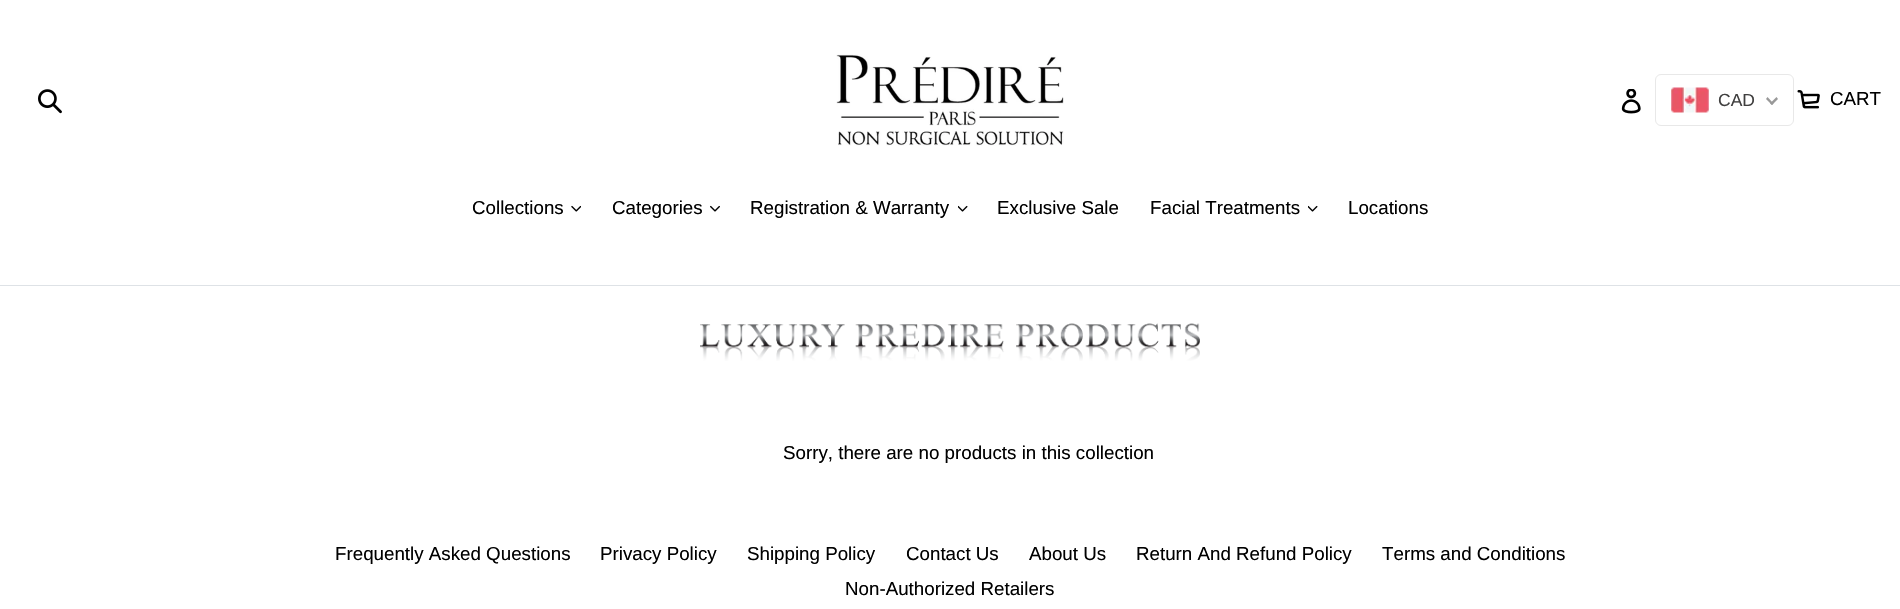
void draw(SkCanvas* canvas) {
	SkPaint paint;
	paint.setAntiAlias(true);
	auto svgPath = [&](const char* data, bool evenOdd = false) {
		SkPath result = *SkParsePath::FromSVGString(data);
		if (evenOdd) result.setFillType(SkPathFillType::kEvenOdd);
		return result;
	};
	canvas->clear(0xffffffff);
	canvas->drawImageRect(SkImages::DeferredFromEncodedData(SkData::MakeFromFileName("img1.png")), SkRect::MakeXYWH(38, 89, 24, 25), SkSamplingOptions());
	canvas->drawImageRect(SkImages::DeferredFromEncodedData(SkData::MakeFromFileName("img2.png")), SkRect::MakeXYWH(836, 54, 228, 92), SkSamplingOptions());
	canvas->drawImageRect(SkImages::DeferredFromEncodedData(SkData::MakeFromFileName("img3.png")), SkRect::MakeXYWH(1621, 89, 20, 25), SkSamplingOptions());
	paint.setStroke(true);
	paint.setStrokeWidth(1);
	paint.setColor(0xffe8e8e8);
	canvas->drawRoundRect(SkRect::MakeXYWH(1655.5, 74.5, 138, 51), 5.5, 5.5, paint);
	canvas->drawImageRect(SkImages::DeferredFromEncodedData(SkData::MakeFromFileName("img4.png")), SkRect::MakeXYWH(1671, 87, 38, 26), SkSamplingOptions());
	SkFont f1(fontMgr->matchFamilyStyle("Liberation Sans", SkFontStyle::Normal()), 17.5);
	f1.setSubpixel(true);
	paint.setStroke(false);
	paint.setColor(0xff403f3f);
	canvas->drawString("CAD", 1718, 106, f1, paint);
	paint.setColor(0xff999999);
	canvas->drawPath(svgPath("M1776.5 97L1778 99L1772 105L1770 103.5Z"), paint);
	canvas->drawPath(svgPath("M1767.5 97L1773.5 103.5L1772 105L1766 99Z"), paint);
	canvas->drawImageRect(SkImages::DeferredFromEncodedData(SkData::MakeFromFileName("img5.png")), SkRect::MakeXYWH(1797, 90, 23, 19), SkSamplingOptions());
	SkFont f2(fontMgr->matchFamilyStyle("Liberation Sans", SkFontStyle::Normal()), 18.75);
	f2.setSubpixel(true);
	paint.setColor(0xff000000);
	canvas->drawString("CART", 1830, 105, f2, paint);
	paint.setColor(0xffdee2e6);
	canvas->drawRect(SkRect::MakeXYWH(0, 285, 1900, 1), paint);
	paint.setColor(0xff000000);
	canvas->drawString("Collections", 472, 214, f2, paint);
	canvas->drawImageRect(SkImages::DeferredFromEncodedData(SkData::MakeFromFileName("img6.png")), SkRect::MakeXYWH(571, 205, 10, 7), SkSamplingOptions());
	canvas->drawString("Categories", 612, 214, f2, paint);
	canvas->drawImageRect(SkImages::DeferredFromEncodedData(SkData::MakeFromFileName("img7.png")), SkRect::MakeXYWH(710, 205, 10, 7), SkSamplingOptions());
	canvas->drawString("Registration & Warranty", 750, 214, f2, paint);
	canvas->drawImageRect(SkImages::DeferredFromEncodedData(SkData::MakeFromFileName("img8.png")), SkRect::MakeXYWH(958, 205, 10, 7), SkSamplingOptions());
	canvas->drawString("Exclusive Sale", 997, 214, f2, paint);
	canvas->drawString("Facial Treatments", 1150, 214, f2, paint);
	canvas->drawImageRect(SkImages::DeferredFromEncodedData(SkData::MakeFromFileName("img8.png")), SkRect::MakeXYWH(1308, 205, 10, 7), SkSamplingOptions());
	canvas->drawString("Locations", 1348, 214, f2, paint);
	canvas->drawImageRect(SkImages::DeferredFromEncodedData(SkData::MakeFromFileName("img9.png")), SkRect::MakeXYWH(700, 323, 500, 38), SkSamplingOptions());
	canvas->drawString("Sorry, there are no products in this collection", 783, 459, f2, paint);
	canvas->drawString("Frequently Asked Questions", 335, 560, f2, paint);
	canvas->drawString("Privacy Policy", 600, 560, f2, paint);
	canvas->drawString("Shipping Policy", 747, 560, f2, paint);
	canvas->drawString("Contact Us", 906, 560, f2, paint);
	canvas->drawString("About Us", 1029, 560, f2, paint);
	canvas->drawString("Return And Refund Policy", 1136, 560, f2, paint);
	canvas->drawString("Terms and Conditions", 1382, 560, f2, paint);
	canvas->drawString("Non-Authorized Retailers", 845, 595, f2, paint);
}
